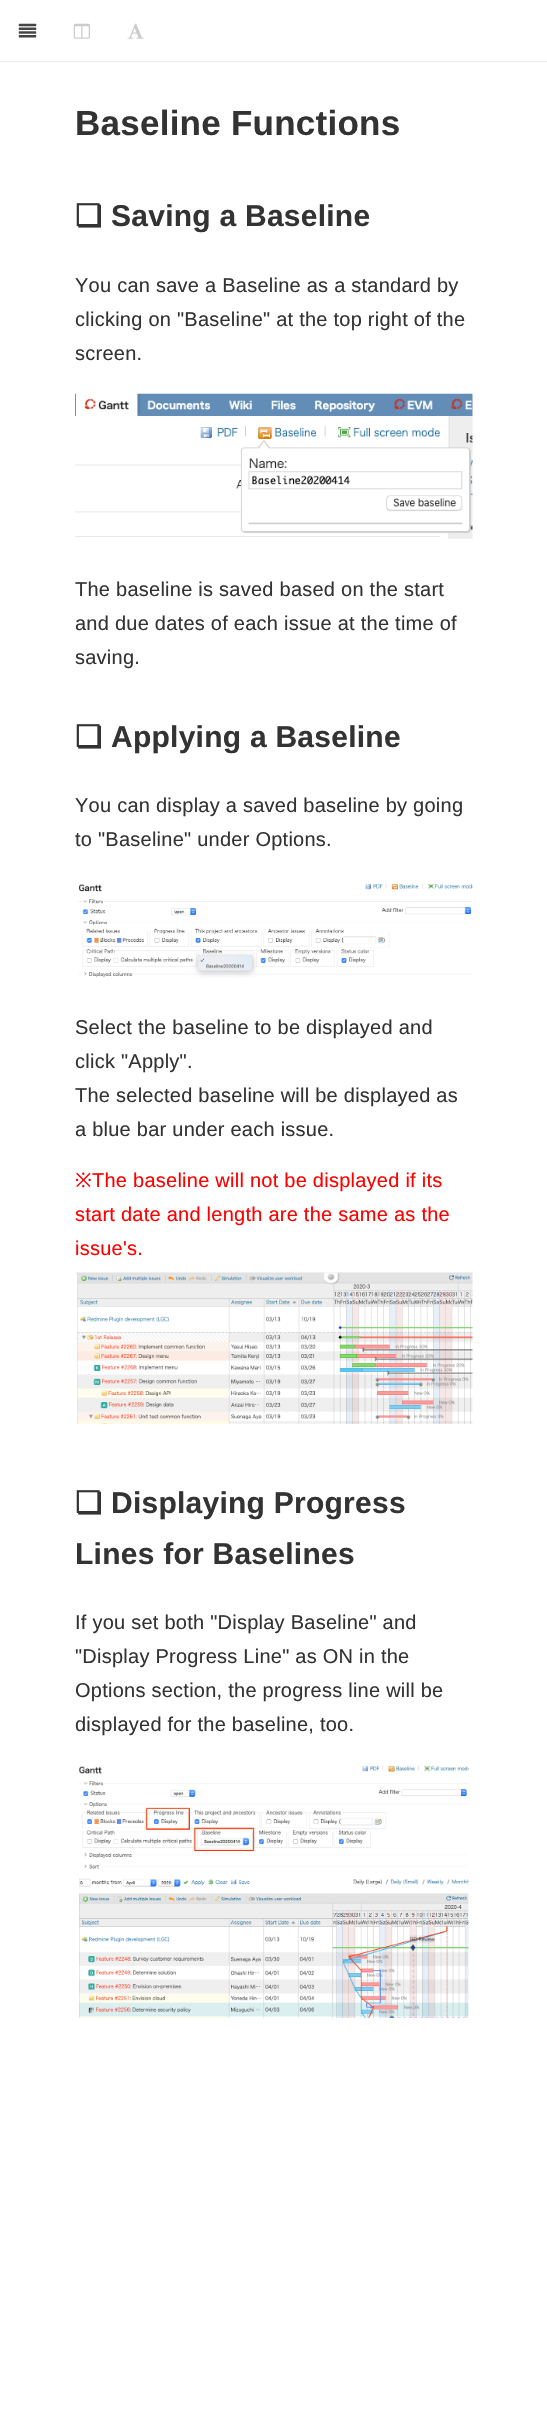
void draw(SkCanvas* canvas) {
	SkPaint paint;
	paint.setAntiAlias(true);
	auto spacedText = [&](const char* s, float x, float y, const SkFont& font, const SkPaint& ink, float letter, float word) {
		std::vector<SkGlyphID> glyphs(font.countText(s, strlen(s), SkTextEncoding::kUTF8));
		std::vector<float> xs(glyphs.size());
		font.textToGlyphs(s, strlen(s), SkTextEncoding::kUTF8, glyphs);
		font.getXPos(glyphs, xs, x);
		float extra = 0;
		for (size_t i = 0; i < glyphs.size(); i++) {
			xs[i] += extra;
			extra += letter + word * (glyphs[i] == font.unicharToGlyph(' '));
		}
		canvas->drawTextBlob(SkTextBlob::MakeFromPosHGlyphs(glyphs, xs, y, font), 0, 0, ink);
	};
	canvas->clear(0xffffffff);
	paint.setColor(0xffededed);
	canvas->drawRect(SkRect::MakeXYWH(0, 61, 547, 1), paint);
	canvas->drawImageRect(SkImages::DeferredFromEncodedData(SkData::MakeFromFileName("img1.png")), SkRect::MakeXYWH(18, 23, 19, 15), SkSamplingOptions());
	canvas->drawImageRect(SkImages::DeferredFromEncodedData(SkData::MakeFromFileName("img2.png")), SkRect::MakeXYWH(73, 23, 17, 16), SkSamplingOptions());
	canvas->drawImageRect(SkImages::DeferredFromEncodedData(SkData::MakeFromFileName("img3.png")), SkRect::MakeXYWH(127, 23, 17, 16), SkSamplingOptions());
	SkFont f1(fontMgr->matchFamilyStyle("Liberation Sans", SkFontStyle::Bold()), 35);
	f1.setSubpixel(true);
	paint.setColor(0xff333333);
	spacedText("Baseline Functions", 75, 135, f1, paint, 0.25, 0);
	SkFont f2(fontMgr->matchFamilyStyle("DejaVu Sans", SkFontStyle::Bold()), 30);
	f2.setSubpixel(true);
	spacedText("❏", 75, 226, f2, paint, 0.25, 0);
	SkFont f3(fontMgr->matchFamilyStyle("Liberation Sans", SkFontStyle::Bold()), 30);
	f3.setSubpixel(true);
	spacedText("Saving a Baseline", 111, 226, f3, paint, 0.25, 0);
	SkFont f4(fontMgr->matchFamilyStyle("Liberation Sans", SkFontStyle::Normal()), 20);
	f4.setSubpixel(true);
	spacedText("You can save a Baseline as a standard by", 75, 292, f4, paint, 0.25, 0);
	spacedText("clicking on \"Baseline\" at the top right of the", 75, 326, f4, paint, 0.25, 0);
	spacedText("screen.", 75, 360, f4, paint, 0.25, 0);
	canvas->drawImageRect(SkImages::DeferredFromEncodedData(SkData::MakeFromFileName("img4.png")), SkRect::MakeXYWH(75, 393, 398, 146), SkSamplingOptions());
	spacedText("The baseline is saved based on the start", 75, 596, f4, paint, 0.25, 0);
	spacedText("and due dates of each issue at the time of", 75, 630, f4, paint, 0.25, 0);
	spacedText("saving.", 75, 664, f4, paint, 0.25, 0);
	spacedText("❏", 75, 747, f2, paint, 0.25, 0);
	spacedText("Applying a Baseline", 111, 747, f3, paint, 0.25, 0);
	spacedText("You can display a saved baseline by going", 75, 812, f4, paint, 0.25, 0);
	spacedText("to \"Baseline\" under Options.", 75, 846, f4, paint, 0.25, 0);
	canvas->drawImageRect(SkImages::DeferredFromEncodedData(SkData::MakeFromFileName("img5.png")), SkRect::MakeXYWH(78, 883, 395, 95), SkSamplingOptions());
	spacedText("Select the baseline to be displayed and", 75, 1034, f4, paint, 0.25, 0);
	spacedText("click \"Apply\".", 75, 1068, f4, paint, 0.25, 0);
	spacedText("The selected baseline will be displayed as", 75, 1102, f4, paint, 0.25, 0);
	spacedText("a blue bar under each issue.", 75, 1136, f4, paint, 0.25, 0);
	SkFont f5(fontMgr->matchFamilyStyle("Noto Sans", SkFontStyle::Normal()), 20);
	f5.setSubpixel(true);
	paint.setColor(0xffff0000);
	spacedText("※", 75, 1187, f5, paint, 0.25, 0);
	spacedText("The baseline will not be displayed if its", 92, 1187, f4, paint, 0.25, 0);
	spacedText("start date and length are the same as the", 75, 1221, f4, paint, 0.25, 0);
	spacedText("issue's.", 75, 1255, f4, paint, 0.25, 0);
	canvas->drawImageRect(SkImages::DeferredFromEncodedData(SkData::MakeFromFileName("img6.png")), SkRect::MakeXYWH(75, 1272, 398, 152), SkSamplingOptions());
	paint.setColor(0xff333333);
	spacedText("❏", 75, 1513, f2, paint, 0.25, 0);
	spacedText("Displaying Progress", 111, 1513, f3, paint, 0.25, 0);
	spacedText("Lines for Baselines", 75, 1564, f3, paint, 0.25, 0);
	spacedText("If you set both \"Display Baseline\" and", 75, 1629, f4, paint, 0.25, 0);
	spacedText("\"Display Progress Line\" as ON in the", 75, 1663, f4, paint, 0.25, 0);
	spacedText("Options section, the progress line will be", 75, 1697, f4, paint, 0.25, 0);
	spacedText("displayed for the baseline, too.", 75, 1731, f4, paint, 0.25, 0);
	canvas->drawImageRect(SkImages::DeferredFromEncodedData(SkData::MakeFromFileName("img7.png")), SkRect::MakeXYWH(79, 1765, 390, 253), SkSamplingOptions());
}
